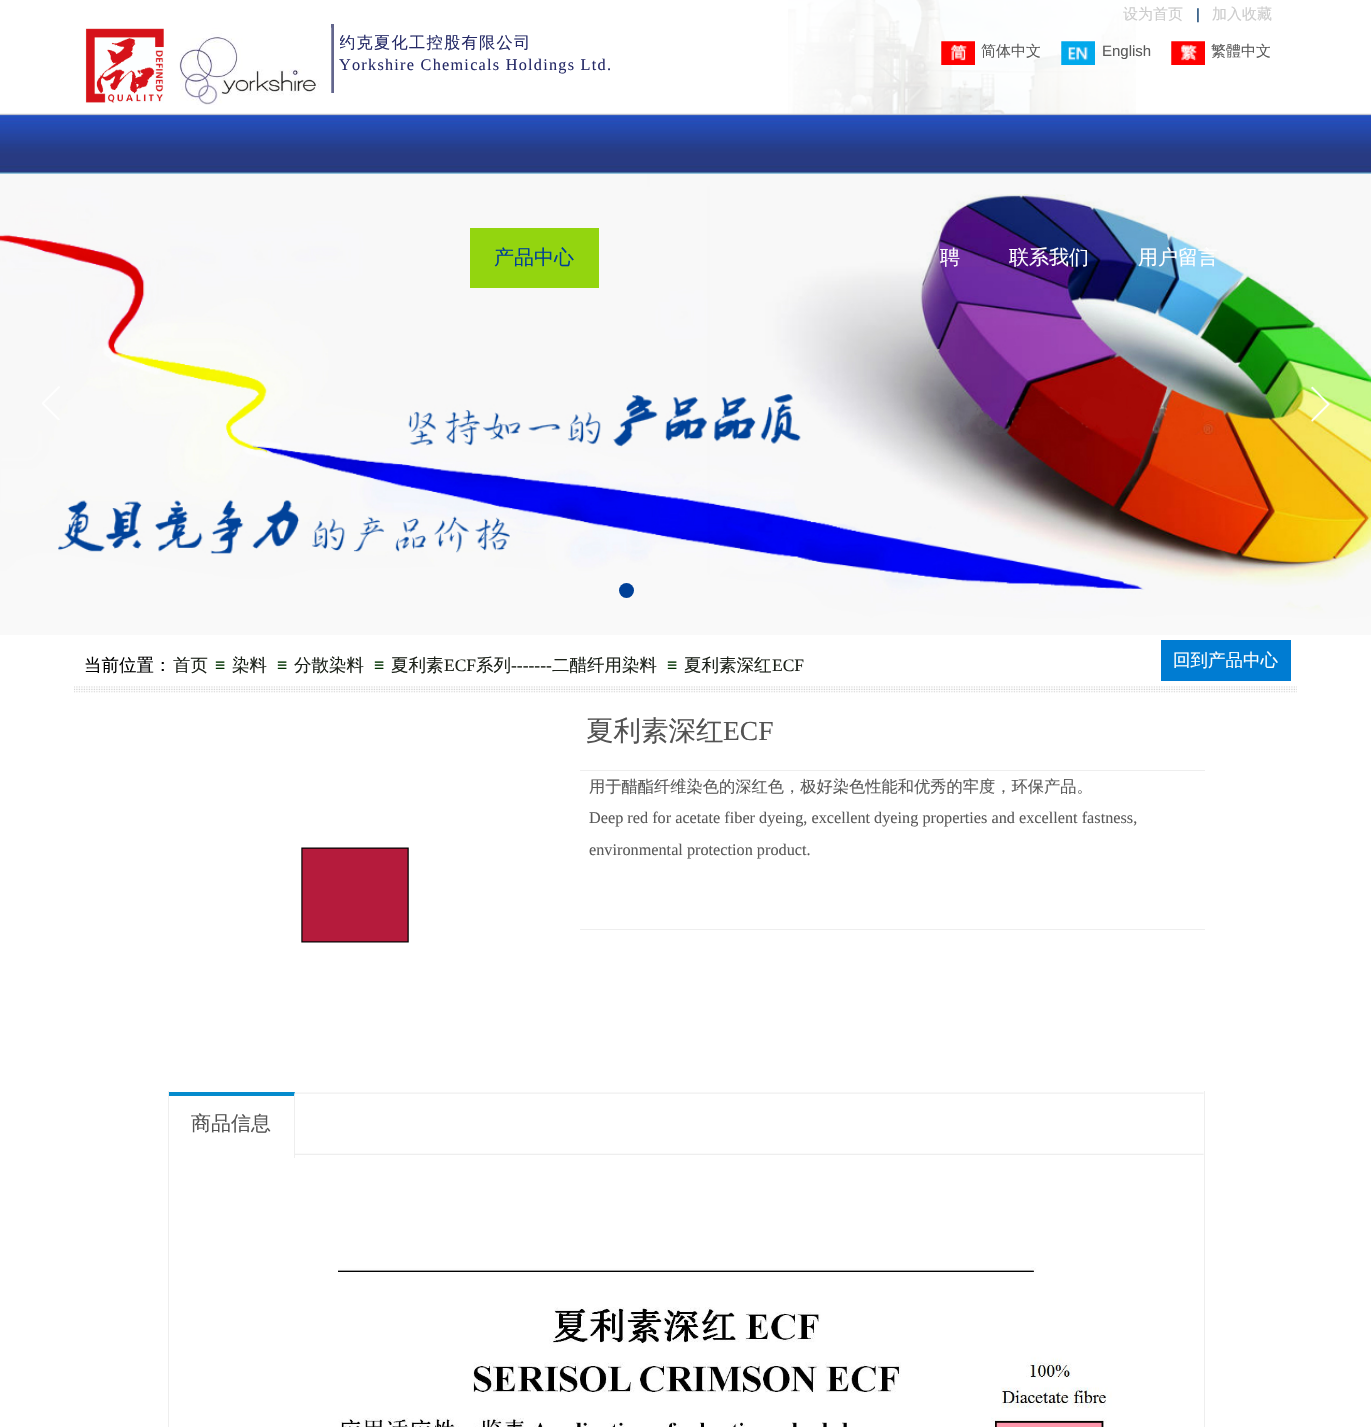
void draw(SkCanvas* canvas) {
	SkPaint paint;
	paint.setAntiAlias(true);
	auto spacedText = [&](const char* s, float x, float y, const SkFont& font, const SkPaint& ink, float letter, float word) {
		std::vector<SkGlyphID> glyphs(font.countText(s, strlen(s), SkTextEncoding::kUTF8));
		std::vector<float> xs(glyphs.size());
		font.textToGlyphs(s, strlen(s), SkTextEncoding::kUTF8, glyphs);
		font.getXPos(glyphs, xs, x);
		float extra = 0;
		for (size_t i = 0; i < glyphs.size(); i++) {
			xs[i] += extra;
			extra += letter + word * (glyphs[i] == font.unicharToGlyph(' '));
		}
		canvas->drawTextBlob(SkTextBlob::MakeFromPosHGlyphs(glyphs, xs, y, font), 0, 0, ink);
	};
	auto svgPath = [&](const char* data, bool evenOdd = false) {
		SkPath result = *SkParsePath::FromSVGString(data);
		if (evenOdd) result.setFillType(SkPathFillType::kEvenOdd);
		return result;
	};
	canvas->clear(0xffffffff);
	canvas->drawImageRect(SkImages::DeferredFromEncodedData(SkData::MakeFromFileName("img1.png")), SkRect::MakeXYWH(788, 0, 348, 114), SkSamplingOptions());
	SkFont f1(fontMgr->matchFamilyStyle("WenQuanYi Zen Hei", SkFontStyle(500, SkFontStyle::kNormal_Width, SkFontStyle::kUpright_Slant)), 15);
	f1.setSubpixel(true);
	paint.setColor(0xffcccccc);
	canvas->drawString("设为首页", 1123, 19, f1, paint);
	SkFont f2(fontMgr->matchFamilyStyle("Liberation Sans", SkFontStyle::Normal()), 15);
	f2.setSubpixel(true);
	paint.setColor(0xff003366);
	canvas->drawString("|", 1196, 19, f2, paint);
	paint.setColor(0xffcccccc);
	canvas->drawString("加入收藏", 1212, 19, f1, paint);
	canvas->drawImageRect(SkImages::DeferredFromEncodedData(SkData::MakeFromFileName("img2.png")), SkRect::MakeXYWH(85, 28, 79, 75), SkSamplingOptions());
	paint.setColor(0xff63668d);
	canvas->drawRect(SkRect::MakeXYWH(331, 24, 3, 69), paint);
	canvas->drawImageRect(SkImages::DeferredFromEncodedData(SkData::MakeFromFileName("img3.png")), SkRect::MakeXYWH(179, 27, 153, 78), SkSamplingOptions());
	canvas->save();
	canvas->clipRect(SkRect::MakeXYWH(340, 31, 418, 57));
	SkFont f3(fontMgr->matchFamilyStyle("WenQuanYi Zen Hei", SkFontStyle(500, SkFontStyle::kNormal_Width, SkFontStyle::kUpright_Slant)), 16.25);
	f3.setSubpixel(true);
	paint.setColor(0xff252a67);
	spacedText("约克夏化工控股有限公司", 339, 48, f3, paint, 1.25, 0);
	canvas->restore();
	SkFont f4(fontMgr->matchFamilyStyle("Liberation Serif", SkFontStyle::Normal()), 16.25);
	f4.setSubpixel(true);
	spacedText("Yorkshire Chemicals Holdings Ltd.", 339, 70, f4, paint, 1.25, 0);
	canvas->drawImageRect(SkImages::DeferredFromEncodedData(SkData::MakeFromFileName("img4.png")), SkRect::MakeXYWH(941, 41, 34, 24), SkSamplingOptions());
	paint.setColor(0xff5a5a5a);
	canvas->drawString("简体中文", 981, 56, f1, paint);
	canvas->drawImageRect(SkImages::DeferredFromEncodedData(SkData::MakeFromFileName("img5.png")), SkRect::MakeXYWH(1061, 41, 34, 24), SkSamplingOptions());
	canvas->drawString("English", 1102, 56, f2, paint);
	canvas->drawImageRect(SkImages::DeferredFromEncodedData(SkData::MakeFromFileName("img6.png")), SkRect::MakeXYWH(1171, 41, 34, 24), SkSamplingOptions());
	canvas->drawString("繁體中文", 1211, 56, f1, paint);
	canvas->drawImageRect(SkImages::DeferredFromEncodedData(SkData::MakeFromFileName("img8.png")), SkRect::MakeXYWH(0, 173, 1371, 462), SkSamplingOptions());
	canvas->drawImageRect(SkImages::DeferredFromEncodedData(SkData::MakeFromFileName("img7.png")), SkRect::MakeXYWH(0, 113, 1371, 61), SkSamplingOptions());
	canvas->drawImageRect(SkImages::DeferredFromEncodedData(SkData::MakeFromFileName("img9.png")), SkRect::MakeXYWH(42, 386, 18, 34), SkSamplingOptions());
	canvas->drawImageRect(SkImages::DeferredFromEncodedData(SkData::MakeFromFileName("img10.png")), SkRect::MakeXYWH(1310, 386, 21, 36), SkSamplingOptions());
	paint.setColor(0xff004097);
	canvas->drawCircle(626.5, 590.5, 7.5, paint);
	paint.setColor(0xff93d50f);
	canvas->drawRect(SkRect::MakeXYWH(470, 228, 129, 60), paint);
	SkFont f5(fontMgr->matchFamilyStyle("WenQuanYi Zen Hei", SkFontStyle(500, SkFontStyle::kNormal_Width, SkFontStyle::kUpright_Slant)), 20);
	f5.setSubpixel(true);
	paint.setColor(0xff004097);
	canvas->drawString("产品中心", 494, 264, f5, paint);
	paint.setColor(0xffffffff);
	canvas->drawString("聘", 940, 264, f5, paint);
	canvas->drawString("联系我们", 1009, 264, f5, paint);
	canvas->drawString("用户留言", 1138, 264, f5, paint);
	SkFont f6(fontMgr->matchFamilyStyle("WenQuanYi Zen Hei", SkFontStyle(500, SkFontStyle::kNormal_Width, SkFontStyle::kUpright_Slant)), 17.5);
	f6.setSubpixel(true);
	paint.setColor(0xff000000);
	canvas->drawString("当前位置：", 84, 671, f6, paint);
	paint.setColor(0xff1b2119);
	canvas->drawString("首页", 173, 671, f6, paint);
	SkFont f7(fontMgr->matchFamilyStyle("Liberation Sans", SkFontStyle::Normal()), 17.5);
	f7.setSubpixel(true);
	paint.setColor(0xff003300);
	canvas->drawString("≡", 215, 671, f7, paint);
	paint.setColor(0xff1b2119);
	canvas->drawString("染料", 232, 671, f6, paint);
	paint.setColor(0xff003300);
	canvas->drawString("≡", 277, 671, f7, paint);
	paint.setColor(0xff1b2119);
	canvas->drawString("分散染料", 294, 671, f6, paint);
	paint.setColor(0xff003300);
	canvas->drawString("≡", 374, 671, f7, paint);
	paint.setColor(0xff1b2119);
	canvas->drawString("夏利素", 391, 671, f6, paint);
	SkFont f8(fontMgr->matchFamilyStyle("Liberation Serif", SkFontStyle::Normal()), 17.5);
	f8.setSubpixel(true);
	canvas->drawString("ECF", 444, 671, f8, paint);
	canvas->drawString("系列", 476, 671, f6, paint);
	canvas->drawString("-------", 511, 671, f8, paint);
	canvas->drawString("二醋纤用染料", 552, 671, f6, paint);
	paint.setColor(0xff003300);
	canvas->drawString("≡", 667, 671, f7, paint);
	paint.setColor(0xff1b2119);
	canvas->drawString("夏利素深红", 684, 671, f6, paint);
	canvas->drawString("ECF", 772, 671, f8, paint);
	paint.setColor(0xff007cd2);
	canvas->drawRect(SkRect::MakeXYWH(1161, 640, 130, 41), paint);
	paint.setColor(0xffffffff);
	canvas->drawString("回到产品中心", 1173, 666, f6, paint);
	canvas->drawImageRect(SkImages::DeferredFromEncodedData(SkData::MakeFromFileName("img11.png")), SkRect::MakeXYWH(74, 686, 1223, 7), SkSamplingOptions());
	paint.setColor(0xffeeeeee);
	canvas->drawRect(SkRect::MakeXYWH(580, 770, 625, 1), paint);
	SkFont f9(fontMgr->matchFamilyStyle("WenQuanYi Zen Hei", SkFontStyle(500, SkFontStyle::kNormal_Width, SkFontStyle::kUpright_Slant)), 27.5);
	f9.setSubpixel(true);
	paint.setColor(0xff535353);
	canvas->drawString("夏利素深红", 586, 740, f9, paint);
	SkFont f10(fontMgr->matchFamilyStyle("Liberation Serif", SkFontStyle::Normal()), 27.5);
	f10.setSubpixel(true);
	canvas->drawString("ECF", 723, 740, f10, paint);
	paint.setColor(0xff5a5a5a);
	canvas->drawString("用于醋酯纤维染色的深红色，极好染色性能和优秀的牢度，环保产品。", 589, 792, f3, paint);
	canvas->drawString("Deep red for acetate fiber dyeing, excellent dyeing properties and excellent fastness,", 589, 823, f4, paint);
	canvas->drawString("environmental protection product.", 589, 855, f4, paint);
	paint.setColor(0xffeeeeee);
	canvas->drawRect(SkRect::MakeXYWH(580, 929, 625, 1), paint);
	canvas->drawImageRect(SkImages::DeferredFromEncodedData(SkData::MakeFromFileName("img12.png")), SkRect::MakeXYWH(301, 847, 108, 96), SkSamplingOptions());
	canvas->drawRect(SkRect::MakeXYWH(1204, 1091, 1, 336), paint);
	canvas->drawRect(SkRect::MakeXYWH(168, 1091, 1, 336), paint);
	canvas->drawImageRect(SkImages::DeferredFromEncodedData(SkData::MakeFromFileName("img13.png")), SkRect::MakeXYWH(294, 1092, 910, 63), SkSamplingOptions());
	paint.setColor(0xffffffff);
	canvas->drawRect(SkRect::MakeXYWH(294, 1093, 1, 62), paint);
	paint.setColor(0xff048bcd);
	canvas->drawPath(svgPath("M169 1092H295L294 1096H169Z"), paint);
	canvas->save();
	canvas->clipRect(SkRect::MakeXYWH(169, 1091, 1035, 67));
	paint.setColor(0xffeeeeee);
	canvas->drawPath(svgPath("M295 1092V1161H294V1096Z"), paint);
	canvas->restore();
	paint.setColor(0xff535353);
	canvas->drawString("商品信息", 191, 1130, f5, paint);
	canvas->drawImageRect(SkImages::DeferredFromEncodedData(SkData::MakeFromFileName("img14.png")), SkRect::MakeXYWH(338, 1267, 774, 160), SkSamplingOptions());
}
